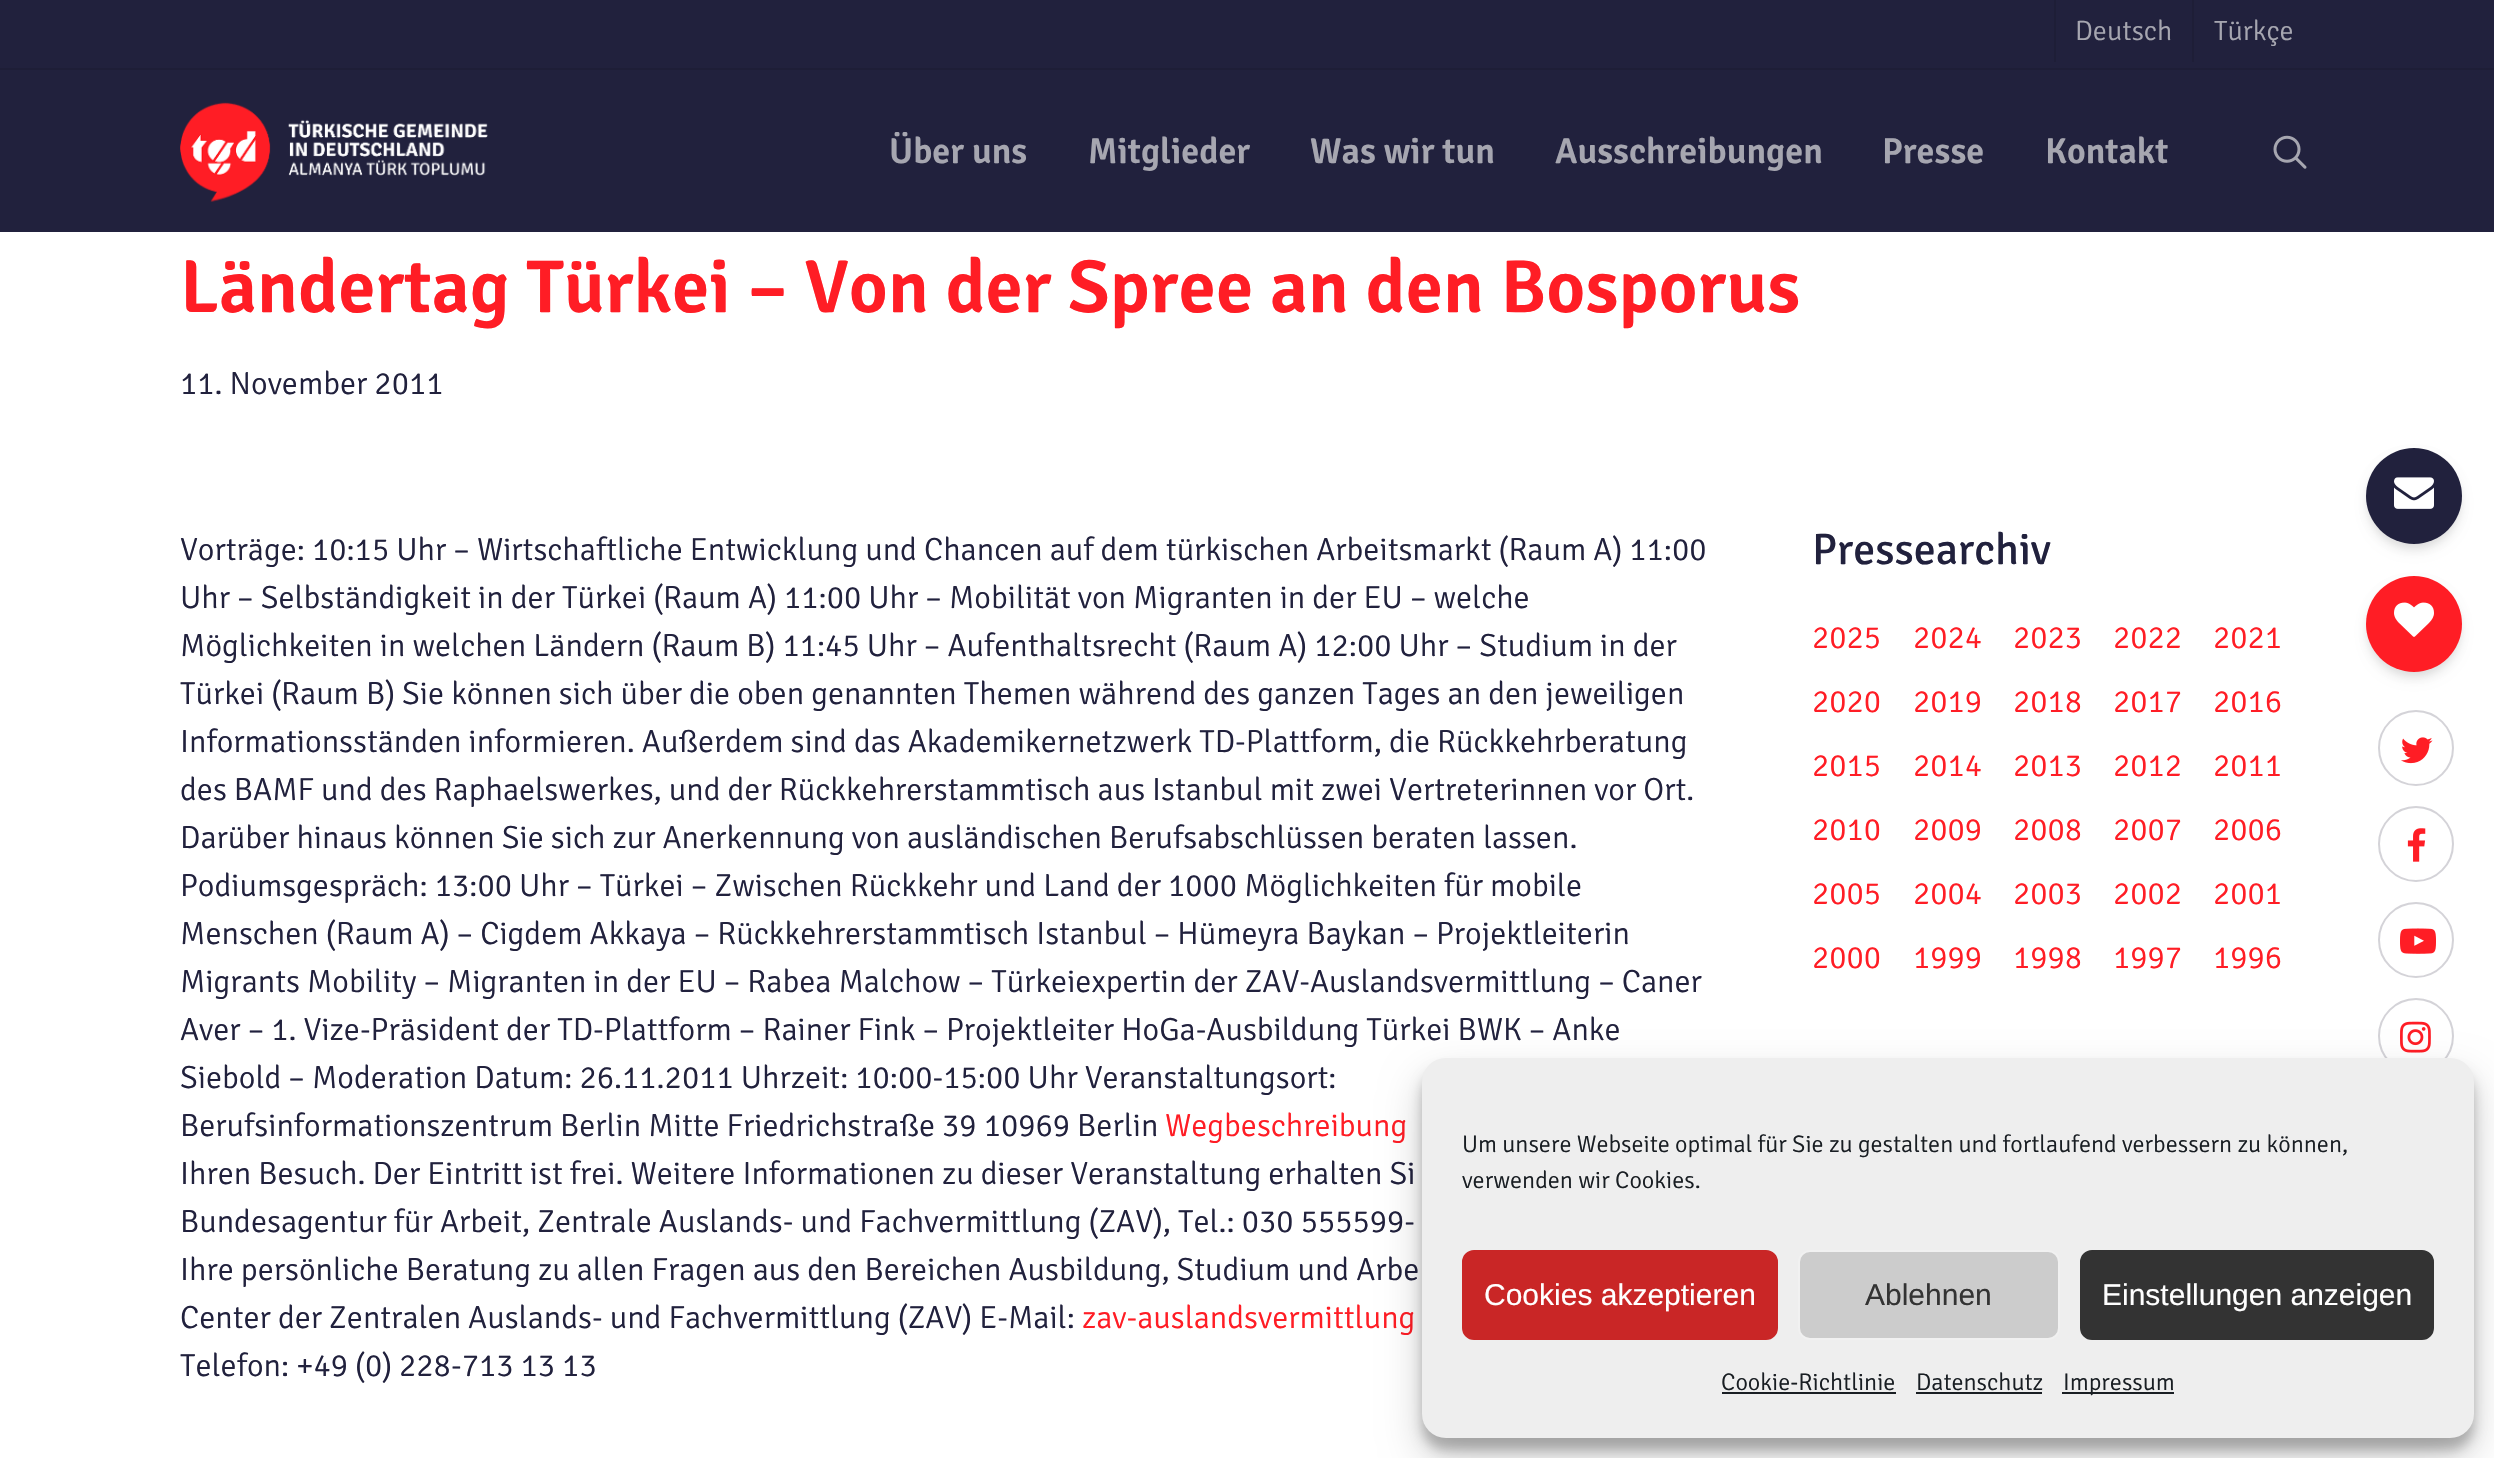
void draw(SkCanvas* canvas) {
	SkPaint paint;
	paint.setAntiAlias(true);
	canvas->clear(0xffffffff);
	paint.setColor(0xff21213d);
	canvas->drawRect(SkRect::MakeXYWH(0, 0, 2494, 232), paint);
	paint.setColor(0xff1e1e37);
	canvas->drawRect(SkRect::MakeXYWH(0, 68, 2494, 2), paint);
	canvas->drawRect(SkRect::MakeXYWH(2054, 0, 2, 62), paint);
	SkFont f1(fontMgr->matchFamilyStyle("Signika", SkFontStyle(300, SkFontStyle::kNormal_Width, SkFontStyle::kUpright_Slant)), 28);
	f1.setSubpixel(true);
	paint.setColor(0xffa6a6b0);
	canvas->drawString("Deutsch", 2075, 40, f1, paint);
	paint.setColor(0xff1e1e37);
	canvas->drawRect(SkRect::MakeXYWH(2192, 0, 2, 62), paint);
	paint.setColor(0xffa6a6b0);
	canvas->drawString("Türkçe", 2214, 40, f1, paint);
	paint.setStroke(true);
	paint.setStrokeWidth(2);
	paint.setColor(0xffd4d3d8);
	canvas->drawCircle(2416, 748, 37, paint);
	canvas->drawImageRect(SkImages::DeferredFromEncodedData(SkData::MakeFromFileName("img1.png")), SkRect::MakeXYWH(2401, 737, 32, 27), SkSamplingOptions());
	canvas->drawCircle(2416, 844, 37, paint);
	canvas->drawImageRect(SkImages::DeferredFromEncodedData(SkData::MakeFromFileName("img2.png")), SkRect::MakeXYWH(2407, 828, 19, 34), SkSamplingOptions());
	canvas->drawCircle(2416, 940, 37, paint);
	canvas->drawImageRect(SkImages::DeferredFromEncodedData(SkData::MakeFromFileName("img3.png")), SkRect::MakeXYWH(2400, 928, 36, 26), SkSamplingOptions());
	canvas->drawCircle(2416, 1036, 37, paint);
	canvas->drawImageRect(SkImages::DeferredFromEncodedData(SkData::MakeFromFileName("img4.png")), SkRect::MakeXYWH(2400, 1021, 31, 32), SkSamplingOptions());
	canvas->drawImageRect(SkImages::DeferredFromEncodedData(SkData::MakeFromFileName("img5.png")), SkRect::MakeXYWH(180, 102, 308, 100), SkSamplingOptions());
	SkFont f2(fontMgr->matchFamilyStyle("Signika", SkFontStyle(600, SkFontStyle::kNormal_Width, SkFontStyle::kUpright_Slant)), 36);
	f2.setSubpixel(true);
	paint.setStroke(false);
	paint.setColor(0xffa6a6b0);
	canvas->drawString("Über uns", 889, 163, f2, paint);
	canvas->drawString("Mitglieder", 1088, 163, f2, paint);
	canvas->drawString("Was wir tun", 1310, 163, f2, paint);
	canvas->drawString("Ausschreibungen", 1555, 163, f2, paint);
	canvas->drawString("Presse", 1882, 163, f2, paint);
	canvas->drawString("Kontakt", 2045, 163, f2, paint);
	canvas->drawImageRect(SkImages::DeferredFromEncodedData(SkData::MakeFromFileName("img6.png")), SkRect::MakeXYWH(2273, 135, 34, 34), SkSamplingOptions());
	SkFont f3(fontMgr->matchFamilyStyle("Signika", SkFontStyle(600, SkFontStyle::kNormal_Width, SkFontStyle::kUpright_Slant)), 75);
	f3.setSubpixel(true);
	paint.setColor(0xffff1d25);
	canvas->drawString("Ländertag Türkei – Von der Spree an den Bosporus", 180, 312, f3, paint);
	SkFont f4(fontMgr->matchFamilyStyle("Signika", SkFontStyle(300, SkFontStyle::kNormal_Width, SkFontStyle::kUpright_Slant)), 32);
	f4.setSubpixel(true);
	paint.setColor(0xff21213d);
	canvas->drawString("11. November 2011", 180, 394, f4, paint);
	canvas->drawString("Vorträge: 10:15 Uhr – Wirtschaftliche Entwicklung und Chancen auf dem türkischen Arbeitsmarkt (Raum A) 11:00", 180, 560, f4, paint);
	canvas->drawString("Uhr – Selbständigkeit in der Türkei (Raum A) 11:00 Uhr – Mobilität von Migranten in der EU – welche", 180, 608, f4, paint);
	canvas->drawString("Möglichkeiten in welchen Ländern (Raum B) 11:45 Uhr – Aufenthaltsrecht (Raum A) 12:00 Uhr – Studium in der", 180, 656, f4, paint);
	canvas->drawString("Türkei (Raum B) Sie können sich über die oben genannten Themen während des ganzen Tages an den jeweiligen", 180, 704, f4, paint);
	canvas->drawString("Informationsständen informieren. Außerdem sind das Akademikernetzwerk TD-Plattform, die Rückkehrberatung", 180, 752, f4, paint);
	canvas->drawString("des BAMF und des Raphaelswerkes, und der Rückkehrerstammtisch aus Istanbul mit zwei Vertreterinnen vor Ort.", 180, 800, f4, paint);
	canvas->drawString("Darüber hinaus können Sie sich zur Anerkennung von ausländischen Berufsabschlüssen beraten lassen.", 180, 848, f4, paint);
	canvas->drawString("Podiumsgespräch: 13:00 Uhr – Türkei – Zwischen Rückkehr und Land der 1000 Möglichkeiten für mobile", 180, 896, f4, paint);
	canvas->drawString("Menschen (Raum A) – Cigdem Akkaya – Rückkehrerstammtisch Istanbul – Hümeyra Baykan – Projektleiterin", 180, 944, f4, paint);
	canvas->drawString("Migrants Mobility – Migranten in der EU – Rabea Malchow – Türkeiexpertin der ZAV-Auslandsvermittlung – Caner", 180, 992, f4, paint);
	canvas->drawString("Aver – 1. Vize-Präsident der TD-Plattform – Rainer Fink – Projektleiter HoGa-Ausbildung Türkei BWK – Anke", 180, 1040, f4, paint);
	canvas->drawString("Siebold – Moderation Datum: 26.11.2011 Uhrzeit: 10:00-15:00 Uhr Veranstaltungsort:", 180, 1088, f4, paint);
	canvas->drawString("Berufsinformationszentrum Berlin Mitte Friedrichstraße 39 10969 Berlin", 180, 1136, f4, paint);
	paint.setColor(0xffff1d25);
	canvas->drawString("Wegbeschreibung", 1165, 1136, f4, paint);
	paint.setColor(0xff21213d);
	canvas->drawString("Ihren Besuch. Der Eintritt ist frei. Weitere Informationen zu dieser Veranstaltung erhalten Si", 180, 1184, f4, paint);
	canvas->drawString("Bundesagentur für Arbeit, Zentrale Auslands- und Fachvermittlung (ZAV), Tel.: 030 555599-", 180, 1232, f4, paint);
	canvas->drawString("Ihre persönliche Beratung zu allen Fragen aus den Bereichen Ausbildung, Studium und Arbe", 180, 1280, f4, paint);
	canvas->drawString("Center der Zentralen Auslands- und Fachvermittlung (ZAV) E-Mail:", 180, 1328, f4, paint);
	paint.setColor(0xffff1d25);
	canvas->drawString("zav-auslandsvermittlung", 1082, 1328, f4, paint);
	paint.setColor(0xff21213d);
	canvas->drawString("Telefon: +49 (0) 228-713 13 13", 180, 1376, f4, paint);
	SkFont f5(fontMgr->matchFamilyStyle("Signika", SkFontStyle::Normal()), 44);
	f5.setSubpixel(true);
	canvas->drawString("Pressearchiv", 1812, 564, f5, paint);
	paint.setColor(0xffff1d25);
	canvas->drawString("2025", 1812, 648, f4, paint);
	canvas->drawString("2024", 1913, 648, f4, paint);
	canvas->drawString("2023", 2013, 648, f4, paint);
	canvas->drawString("2022", 2113, 648, f4, paint);
	canvas->drawString("2021", 2213, 648, f4, paint);
	canvas->drawString("2020", 1812, 712, f4, paint);
	canvas->drawString("2019", 1913, 712, f4, paint);
	canvas->drawString("2018", 2013, 712, f4, paint);
	canvas->drawString("2017", 2113, 712, f4, paint);
	canvas->drawString("2016", 2213, 712, f4, paint);
	canvas->drawString("2015", 1812, 776, f4, paint);
	canvas->drawString("2014", 1913, 776, f4, paint);
	canvas->drawString("2013", 2013, 776, f4, paint);
	canvas->drawString("2012", 2113, 776, f4, paint);
	canvas->drawString("2011", 2213, 776, f4, paint);
	canvas->drawString("2010", 1812, 840, f4, paint);
	canvas->drawString("2009", 1913, 840, f4, paint);
	canvas->drawString("2008", 2013, 840, f4, paint);
	canvas->drawString("2007", 2113, 840, f4, paint);
	canvas->drawString("2006", 2213, 840, f4, paint);
	canvas->drawString("2005", 1812, 904, f4, paint);
	canvas->drawString("2004", 1913, 904, f4, paint);
	canvas->drawString("2003", 2013, 904, f4, paint);
	canvas->drawString("2002", 2113, 904, f4, paint);
	canvas->drawString("2001", 2213, 904, f4, paint);
	canvas->drawString("2000", 1812, 968, f4, paint);
	canvas->drawString("1999", 1913, 968, f4, paint);
	canvas->drawString("1998", 2013, 968, f4, paint);
	canvas->drawString("1997", 2113, 968, f4, paint);
	canvas->drawString("1996", 2213, 968, f4, paint);
	paint.setColor(0x0f000000);
	paint.setMaskFilter(SkMaskFilter::MakeBlur(kNormal_SkBlurStyle, 4));
	canvas->drawRoundRect(SkRect::MakeXYWH(2368, 454, 92, 92), 46, 46, paint);
	paint.setMaskFilter(nullptr);
	paint.setColor(0x1a000000);
	paint.setMaskFilter(SkMaskFilter::MakeBlur(kNormal_SkBlurStyle, 6));
	canvas->drawRoundRect(SkRect::MakeXYWH(2368, 458, 92, 92), 46, 46, paint);
	paint.setMaskFilter(nullptr);
	paint.setColor(0xff21213d);
	canvas->drawCircle(2414, 496, 48, paint);
	canvas->drawImageRect(SkImages::DeferredFromEncodedData(SkData::MakeFromFileName("img7.png")), SkRect::MakeXYWH(2394, 477, 40, 32), SkSamplingOptions());
	paint.setColor(0x0f000000);
	paint.setMaskFilter(SkMaskFilter::MakeBlur(kNormal_SkBlurStyle, 4));
	canvas->drawRoundRect(SkRect::MakeXYWH(2368, 582, 92, 92), 46, 46, paint);
	paint.setMaskFilter(nullptr);
	paint.setColor(0x1a000000);
	paint.setMaskFilter(SkMaskFilter::MakeBlur(kNormal_SkBlurStyle, 6));
	canvas->drawRoundRect(SkRect::MakeXYWH(2368, 586, 92, 92), 46, 46, paint);
	paint.setMaskFilter(nullptr);
	paint.setColor(0xffff1d25);
	canvas->drawCircle(2414, 624, 48, paint);
	canvas->drawImageRect(SkImages::DeferredFromEncodedData(SkData::MakeFromFileName("img8.png")), SkRect::MakeXYWH(2394, 602, 40, 35), SkSamplingOptions());
	paint.setColor(0x3b000000);
	paint.setMaskFilter(SkMaskFilter::MakeBlur(kNormal_SkBlurStyle, 6));
	canvas->drawRoundRect(SkRect::MakeXYWH(1422, 1070, 1052, 380), 24, 24, paint);
	paint.setMaskFilter(nullptr);
	paint.setColor(0x30000000);
	paint.setMaskFilter(SkMaskFilter::MakeBlur(kNormal_SkBlurStyle, 20));
	canvas->drawRoundRect(SkRect::MakeXYWH(1422, 1078, 1052, 380), 24, 24, paint);
	paint.setMaskFilter(nullptr);
	paint.setColor(0xffeeeeee);
	canvas->drawRoundRect(SkRect::MakeXYWH(1422, 1058, 1052, 380), 24, 24, paint);
	SkFont f6(fontMgr->matchFamilyStyle("Signika", SkFontStyle(300, SkFontStyle::kNormal_Width, SkFontStyle::kUpright_Slant)), 24);
	f6.setSubpixel(true);
	paint.setColor(0xff191e23);
	canvas->drawString("Um unsere Webseite optimal für Sie zu gestalten und fortlaufend verbessern zu können,", 1462, 1152, f6, paint);
	canvas->drawString("verwenden wir Cookies.", 1462, 1188, f6, paint);
	paint.setColor(0xffc92626);
	canvas->drawRoundRect(SkRect::MakeXYWH(1463, 1251, 314, 88), 11, 11, paint);
	paint.setStroke(true);
	canvas->drawRoundRect(SkRect::MakeXYWH(1463, 1251, 314, 88), 11, 11, paint);
	SkFont f7(fontMgr->matchFamilyStyle("Liberation Sans", SkFontStyle::Normal()), 30);
	f7.setSubpixel(true);
	paint.setStroke(false);
	paint.setColor(0xffffffff);
	canvas->drawString("Cookies akzeptieren", 1484, 1305, f7, paint);
	paint.setColor(0xffcccccc);
	canvas->drawRoundRect(SkRect::MakeXYWH(1799, 1251, 260, 88), 11, 11, paint);
	paint.setStroke(true);
	paint.setColor(0xfff1f1f1);
	canvas->drawRoundRect(SkRect::MakeXYWH(1799, 1251, 260, 88), 11, 11, paint);
	paint.setStroke(false);
	paint.setColor(0xff333333);
	canvas->drawString("Ablehnen", 1865, 1305, f7, paint);
	canvas->drawRoundRect(SkRect::MakeXYWH(2081, 1251, 352, 88), 11, 11, paint);
	paint.setStroke(true);
	canvas->drawRoundRect(SkRect::MakeXYWH(2081, 1251, 352, 88), 11, 11, paint);
	paint.setStroke(false);
	paint.setColor(0xffffffff);
	canvas->drawString("Einstellungen anzeigen", 2102, 1305, f7, paint);
	paint.setColor(0xff191e23);
	canvas->drawString("Cookie-Richtlinie", 1721, 1390, f6, paint);
	canvas->drawRect(SkRect::MakeXYWH(1722, 1392, 174, 2), paint);
	canvas->drawString("Datenschutz", 1916, 1390, f6, paint);
	canvas->drawRect(SkRect::MakeXYWH(1916, 1392, 126, 2), paint);
	canvas->drawRect(SkRect::MakeXYWH(2062, 1392, 112, 2), paint);
	canvas->drawString("Impressum", 2063, 1390, f6, paint);
}
